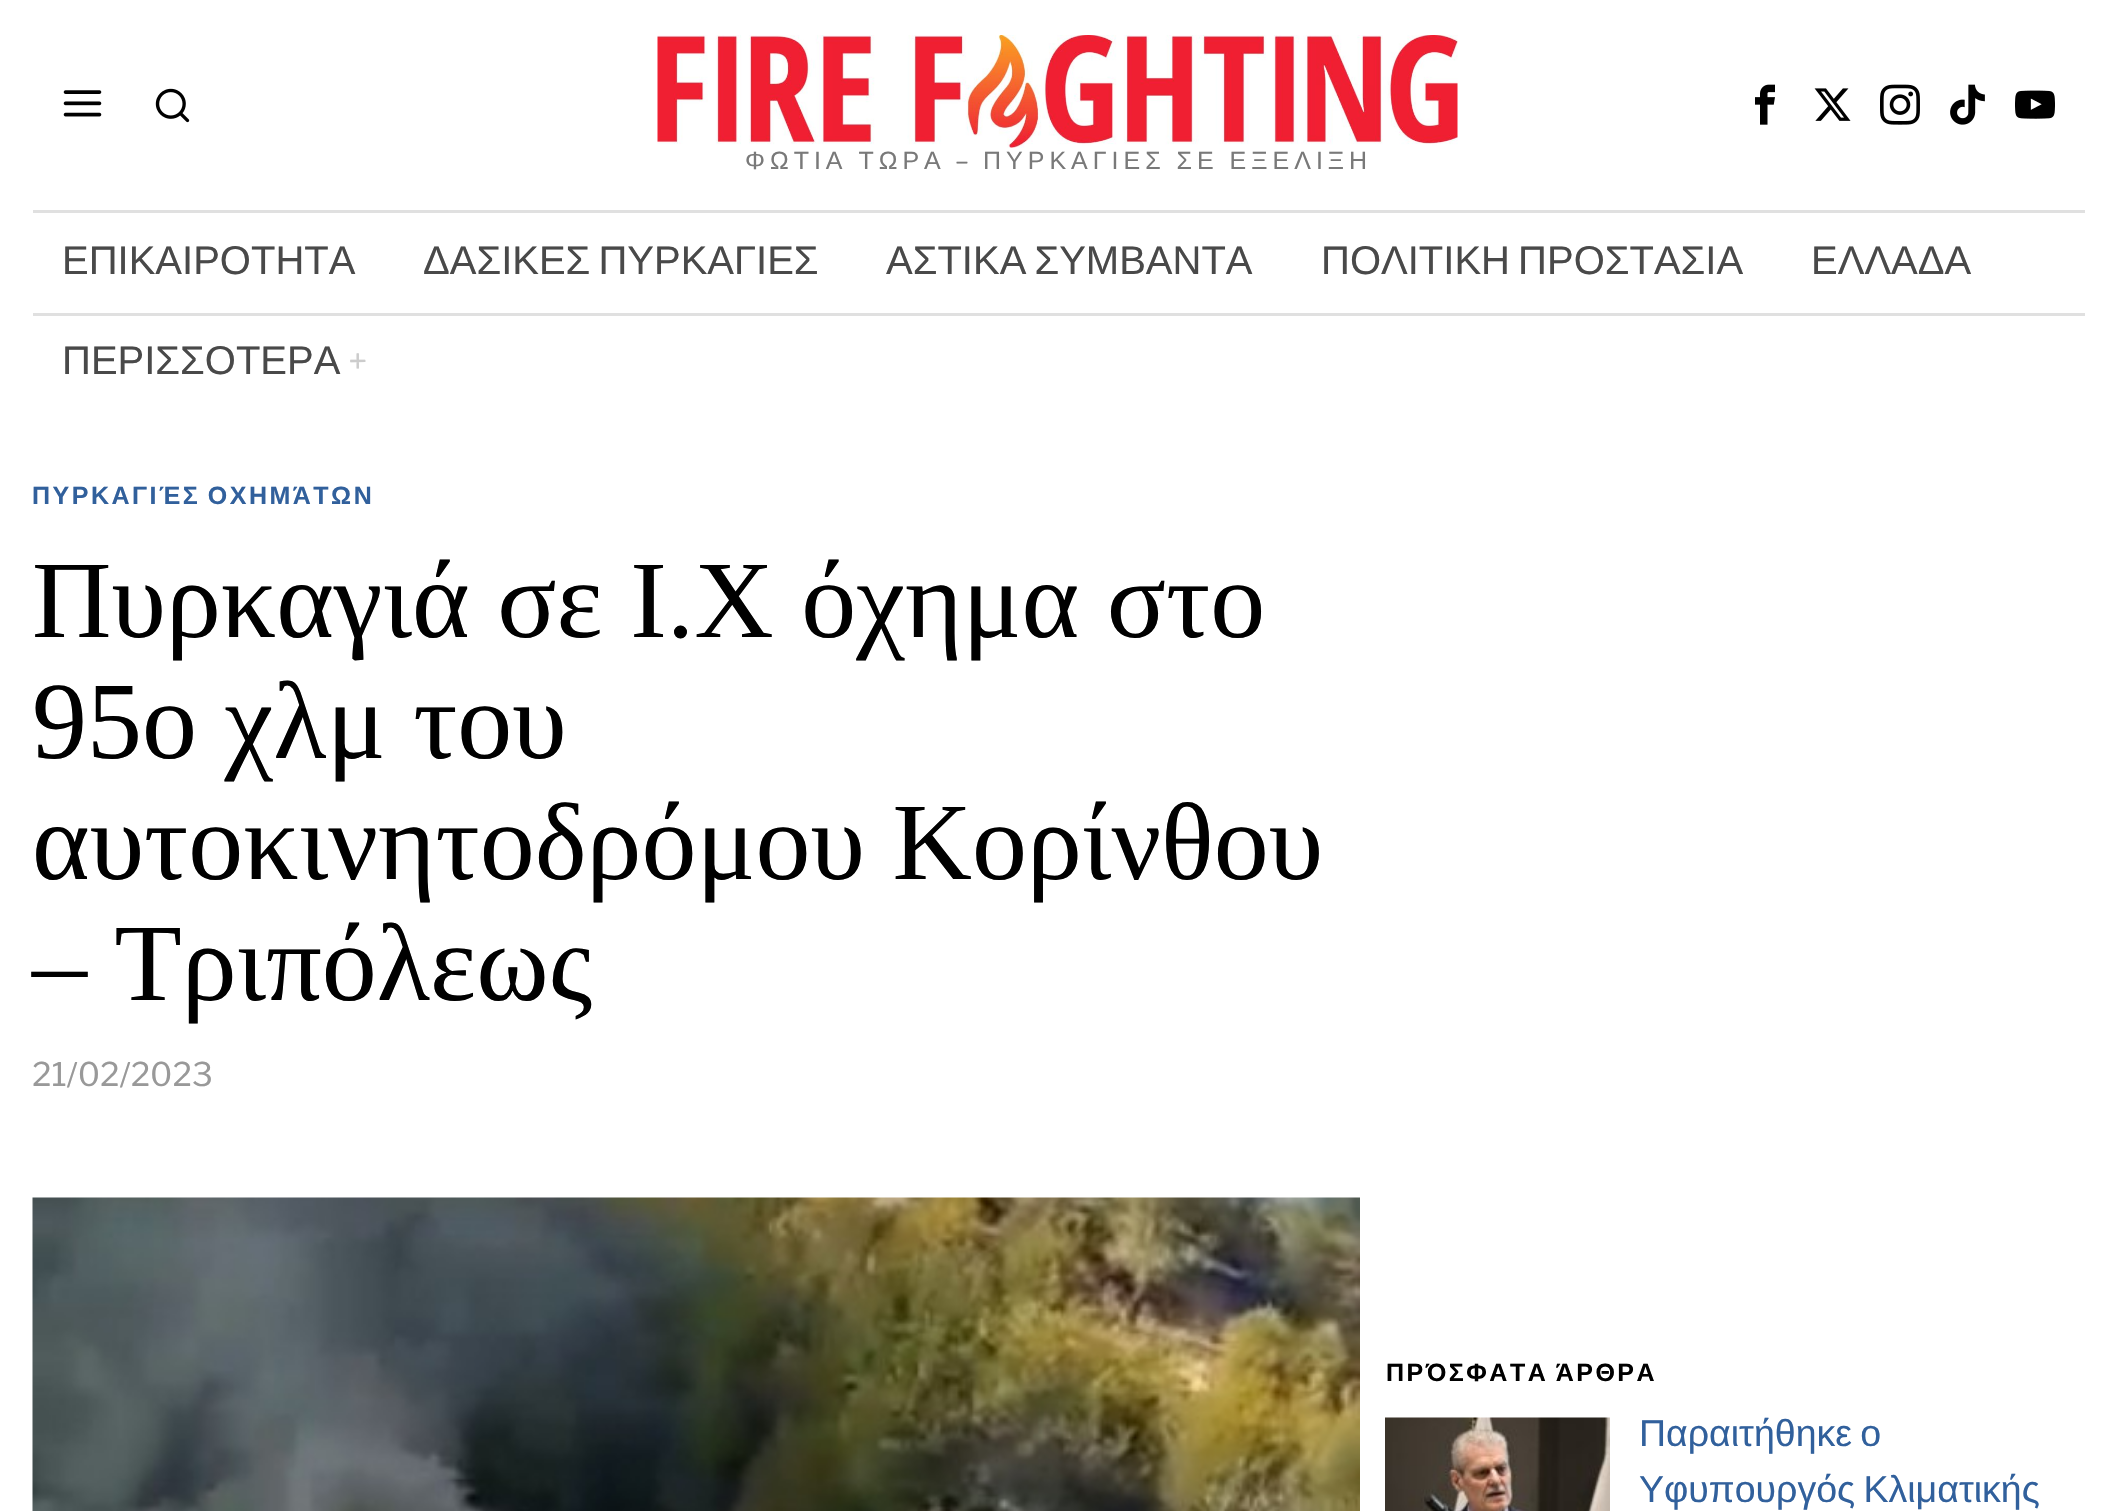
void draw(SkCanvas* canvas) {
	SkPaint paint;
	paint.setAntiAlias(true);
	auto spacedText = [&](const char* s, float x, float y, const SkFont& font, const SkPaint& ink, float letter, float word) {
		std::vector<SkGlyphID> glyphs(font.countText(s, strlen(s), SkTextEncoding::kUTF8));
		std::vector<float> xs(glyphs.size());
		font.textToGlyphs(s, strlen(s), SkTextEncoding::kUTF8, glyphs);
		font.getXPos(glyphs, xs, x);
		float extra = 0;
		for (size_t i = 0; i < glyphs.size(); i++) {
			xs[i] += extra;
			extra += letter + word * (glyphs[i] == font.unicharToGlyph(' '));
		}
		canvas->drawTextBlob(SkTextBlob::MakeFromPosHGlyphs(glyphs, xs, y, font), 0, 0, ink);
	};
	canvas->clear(0xffffffff);
	canvas->drawImageRect(SkImages::DeferredFromEncodedData(SkData::MakeFromFileName("img1.png")), SkRect::MakeXYWH(63, 90, 39, 27), SkSamplingOptions());
	canvas->drawImageRect(SkImages::DeferredFromEncodedData(SkData::MakeFromFileName("img2.png")), SkRect::MakeXYWH(155, 88, 35, 35), SkSamplingOptions());
	canvas->drawImageRect(SkImages::DeferredFromEncodedData(SkData::MakeFromFileName("img3.png")), SkRect::MakeXYWH(1755, 84, 20, 41), SkSamplingOptions());
	canvas->drawImageRect(SkImages::DeferredFromEncodedData(SkData::MakeFromFileName("img4.png")), SkRect::MakeXYWH(1814, 88, 37, 33), SkSamplingOptions());
	canvas->drawImageRect(SkImages::DeferredFromEncodedData(SkData::MakeFromFileName("img5.png")), SkRect::MakeXYWH(1880, 84, 40, 41), SkSamplingOptions());
	canvas->drawImageRect(SkImages::DeferredFromEncodedData(SkData::MakeFromFileName("img6.png")), SkRect::MakeXYWH(1950, 84, 35, 41), SkSamplingOptions());
	canvas->drawImageRect(SkImages::DeferredFromEncodedData(SkData::MakeFromFileName("img7.png")), SkRect::MakeXYWH(2015, 90, 40, 29), SkSamplingOptions());
	canvas->drawImageRect(SkImages::DeferredFromEncodedData(SkData::MakeFromFileName("img8.png")), SkRect::MakeXYWH(657, 35, 801, 113), SkSamplingOptions());
	SkFont f1(fontMgr->matchFamilyStyle("Liberation Sans", SkFontStyle::Normal()), 25);
	f1.setSubpixel(true);
	paint.setColor(0xff797979);
	spacedText("ΦΩΤΙΑ ΤΩΡΑ", 745, 169, f1, paint, 5, -1);
	SkFont f2(fontMgr->matchFamilyStyle("Libre Franklin", SkFontStyle::Normal()), 25);
	f2.setSubpixel(true);
	spacedText("–", 955, 169, f2, paint, 5, 0);
	spacedText("ΠΥΡΚΑΓΙΕΣ ΣΕ ΕΞΕΛΙΞΗ", 983, 169, f1, paint, 5, -1);
	paint.setColor(0xffe0e0e0);
	canvas->drawRect(SkRect::MakeXYWH(33, 210, 2052, 3), paint);
	canvas->drawRect(SkRect::MakeXYWH(33, 313, 2052, 3), paint);
	SkFont f3(fontMgr->matchFamilyStyle("Liberation Sans", SkFontStyle::Normal()), 40);
	f3.setSubpixel(true);
	paint.setColor(0xff494949);
	canvas->drawString("ΕΠΙΚΑΙΡΟΤΗΤΑ", 62, 274, f3, paint);
	spacedText("ΔΑΣΙΚΕΣ ΠΥΡΚΑΓΙΕΣ", 423, 274, f3, paint, 0, -3);
	spacedText("ΑΣΤΙΚΑ ΣΥΜΒΑΝΤΑ", 886, 274, f3, paint, 0, -3);
	spacedText("ΠΟΛΙΤΙΚΗ ΠΡΟΣΤΑΣΙΑ", 1321, 274, f3, paint, 0, -3);
	canvas->drawString("ΕΛΛΑΔΑ", 1811, 274, f3, paint);
	canvas->drawString("ΠΕΡΙΣΣΟΤΕΡΑ", 62, 374, f3, paint);
	SkFont f4(fontMgr->matchFamilyStyle("Libre Franklin", SkFontStyle::Normal()), 35);
	f4.setSubpixel(true);
	paint.setColor(0xffcccccc);
	canvas->drawString("+", 348, 374, f4, paint);
	SkFont f5(fontMgr->matchFamilyStyle("Liberation Sans", SkFontStyle::Bold()), 25);
	f5.setSubpixel(true);
	paint.setColor(0xff31609c);
	spacedText("ΠΥΡΚΑΓΙΈΣ ΟΧΗΜΆΤΩΝ", 32, 504, f5, paint, 2.5, -2);
	SkFont f6(fontMgr->matchFamilyStyle("Tinos", SkFontStyle::Normal()), 110);
	f6.setSubpixel(true);
	paint.setColor(0xff000000);
	canvas->drawString("Πυρκαγιά σε Ι.Χ όχημα στο", 32, 637, f6, paint);
	canvas->drawString("95ο χλμ του", 32, 758, f6, paint);
	canvas->drawString("αυτοκινητοδρόμου Κορίνθου", 32, 879, f6, paint);
	canvas->drawString("– Τριπόλεως", 32, 1000, f6, paint);
	SkFont f7(fontMgr->matchFamilyStyle("Libre Franklin", SkFontStyle::Normal()), 32.5);
	f7.setSubpixel(true);
	paint.setColor(0xff999999);
	canvas->drawString("21/02/2023", 32, 1086, f7, paint);
	canvas->drawImageRect(SkImages::DeferredFromEncodedData(SkData::MakeFromFileName("img9.png")), SkRect::MakeXYWH(32, 1197, 1328, 314), SkSamplingOptions());
	paint.setColor(0xff000000);
	spacedText("ΠΡΌΣΦΑΤΑ ΆΡΘΡΑ", 1386, 1381, f5, paint, 2.5, -2);
	canvas->drawImageRect(SkImages::DeferredFromEncodedData(SkData::MakeFromFileName("img10.png")), SkRect::MakeXYWH(1385, 1417, 225, 94), SkSamplingOptions());
	SkFont f8(fontMgr->matchFamilyStyle("Liberation Sans", SkFontStyle::Normal()), 37.5);
	f8.setSubpixel(true);
	paint.setColor(0xff31609c);
	spacedText("Παραιτήθηκε ο", 1639, 1446, f8, paint, 0, -2);
	spacedText("Υφυπουργός Κλιματικής", 1639, 1502, f8, paint, 0, -2);
}
